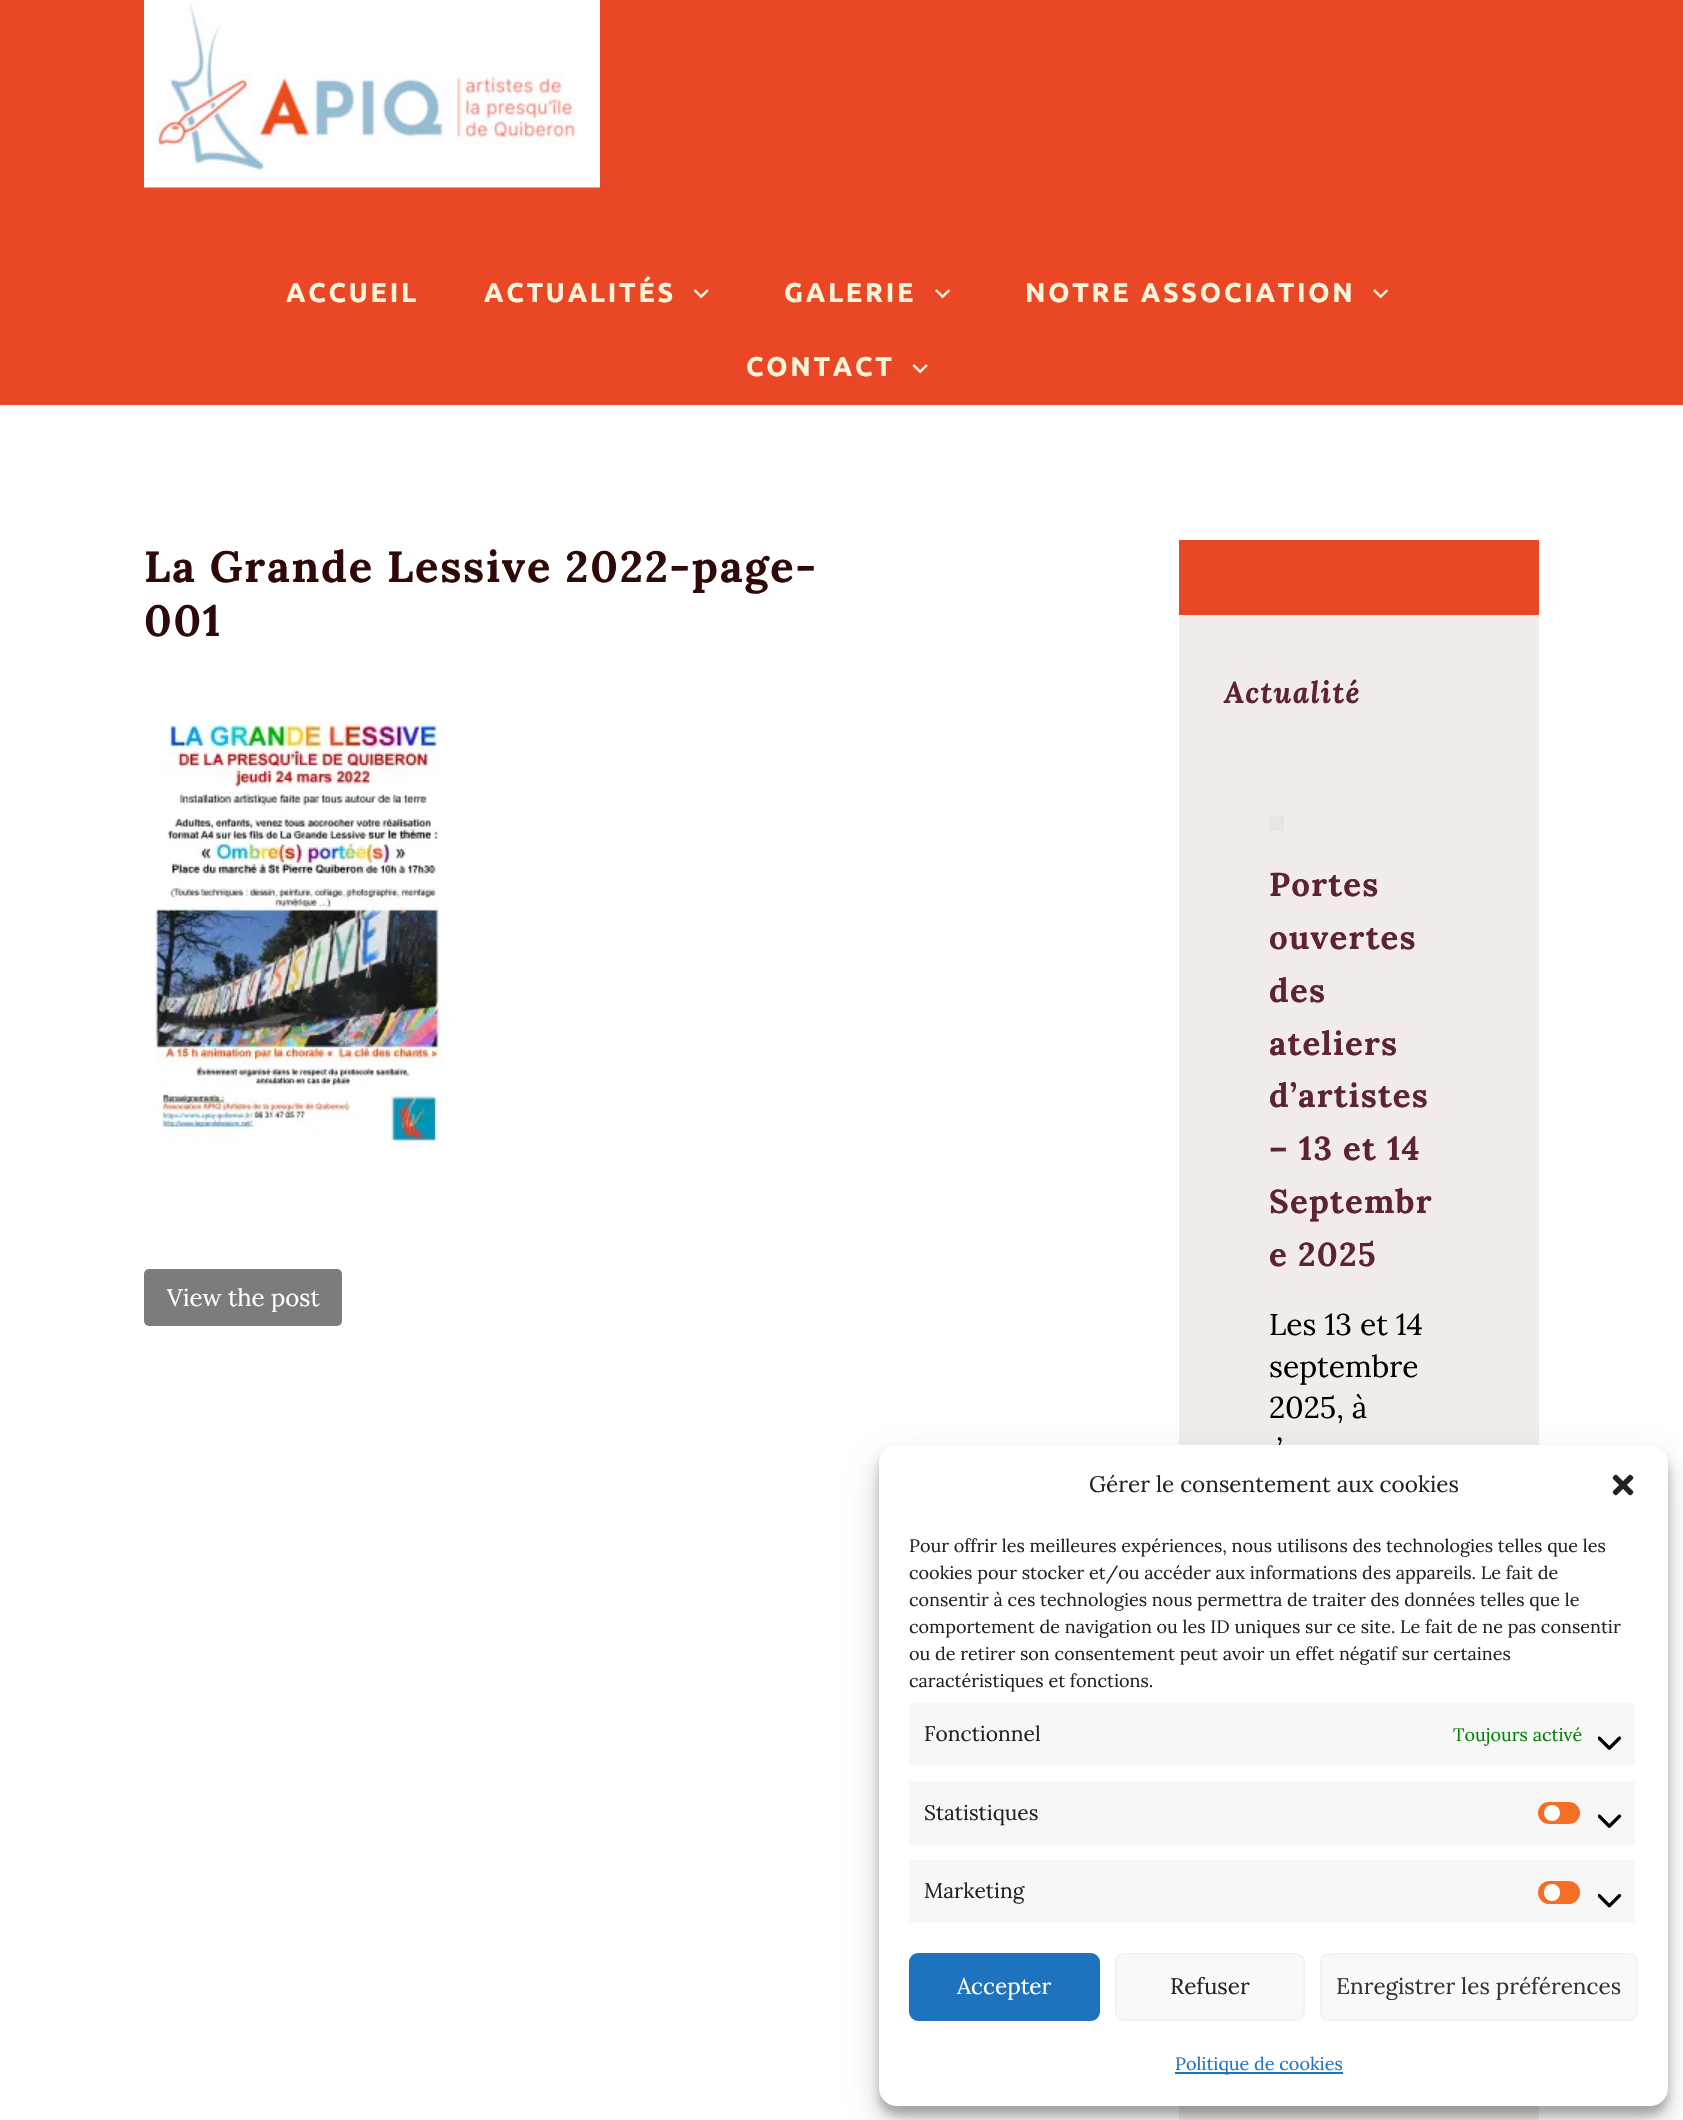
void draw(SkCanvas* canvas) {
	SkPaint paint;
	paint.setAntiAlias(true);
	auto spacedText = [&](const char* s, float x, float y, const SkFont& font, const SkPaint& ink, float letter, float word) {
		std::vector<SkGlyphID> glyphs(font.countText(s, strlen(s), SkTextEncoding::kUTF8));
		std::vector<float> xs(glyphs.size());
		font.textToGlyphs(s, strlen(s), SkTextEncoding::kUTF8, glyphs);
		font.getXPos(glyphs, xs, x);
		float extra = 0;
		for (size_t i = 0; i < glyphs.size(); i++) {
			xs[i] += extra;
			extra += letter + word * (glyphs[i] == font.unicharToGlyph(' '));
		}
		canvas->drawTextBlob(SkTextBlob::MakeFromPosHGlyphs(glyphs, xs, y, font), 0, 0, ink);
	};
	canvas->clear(0xffffffff);
	paint.setColor(0xffea4726);
	canvas->drawRect(SkRect::MakeXYWH(0, 0, 1683, 405), paint);
	canvas->drawImageRect(SkImages::DeferredFromEncodedData(SkData::MakeFromFileName("img1.png")), SkRect::MakeXYWH(144, 0, 456, 188), SkSamplingOptions());
	SkFont f1(fontMgr->matchFamilyStyle("Ubuntu", SkFontStyle::Bold()), 27);
	f1.setSubpixel(true);
	paint.setColor(0xfffaf5d9);
	spacedText("ACCUEIL", 286, 302, f1, paint, 2.75, 0);
	spacedText("ACTUALITÉS", 484, 302, f1, paint, 2.75, 0);
	canvas->drawImageRect(SkImages::DeferredFromEncodedData(SkData::MakeFromFileName("img2.png")), SkRect::MakeXYWH(693, 289, 16, 10), SkSamplingOptions());
	spacedText("GALERIE", 784, 302, f1, paint, 2.75, 0);
	canvas->drawImageRect(SkImages::DeferredFromEncodedData(SkData::MakeFromFileName("img3.png")), SkRect::MakeXYWH(935, 289, 16, 10), SkSamplingOptions());
	spacedText("NOTRE ASSOCIATION", 1025, 302, f1, paint, 2.75, 0);
	canvas->drawImageRect(SkImages::DeferredFromEncodedData(SkData::MakeFromFileName("img3.png")), SkRect::MakeXYWH(1373, 289, 16, 10), SkSamplingOptions());
	spacedText("CONTACT", 746, 376, f1, paint, 2.75, 0);
	canvas->drawImageRect(SkImages::DeferredFromEncodedData(SkData::MakeFromFileName("img2.png")), SkRect::MakeXYWH(912, 364, 16, 10), SkSamplingOptions());
	SkFont f2(fontMgr->matchFamilyStyle("Lora", SkFontStyle::Bold()), 43.5);
	f2.setSubpixel(true);
	paint.setColor(0xff2e0908);
	spacedText("La Grande Lessive 2022-page-", 144, 582, f2, paint, 1.75, 0);
	spacedText("001", 144, 636, f2, paint, 1.75, 0);
	canvas->drawImageRect(SkImages::DeferredFromEncodedData(SkData::MakeFromFileName("img4.png")), SkRect::MakeXYWH(155, 722, 289, 425), SkSamplingOptions());
	paint.setColor(0xff7c7c7c);
	canvas->drawRoundRect(SkRect::MakeXYWH(144, 1269, 198, 57), 5, 5, paint);
	SkFont f3(fontMgr->matchFamilyStyle("Lora", SkFontStyle::Normal()), 24);
	f3.setSubpixel(true);
	paint.setColor(0xffffffff);
	canvas->drawString("View the post", 167, 1306, f3, paint);
	paint.setColor(0xfff1ece9);
	canvas->drawRect(SkRect::MakeXYWH(1179, 615, 360, 1505), paint);
	paint.setColor(0xffea4726);
	canvas->drawRect(SkRect::MakeXYWH(1179, 540, 360, 75), paint);
	SkFont f4(fontMgr->matchFamilyStyle("Lora", SkFontStyle::BoldItalic()), 30);
	f4.setSubpixel(true);
	paint.setColor(0xff5d2331);
	spacedText("Actualité", 1224, 703, f4, paint, 1.25, 0);
	paint.setColor(0xffe9e4e1);
	canvas->drawRect(SkRect::MakeXYWH(1269, 816, 15, 15), paint);
	SkFont f5(fontMgr->matchFamilyStyle("Lora", SkFontStyle::Bold()), 33);
	f5.setSubpixel(true);
	paint.setColor(0xff5d2331);
	spacedText("Portes", 1269, 896, f5, paint, 1.25, 0);
	spacedText("ouvertes", 1269, 949, f5, paint, 1.25, 0);
	spacedText("des", 1269, 1002, f5, paint, 1.25, 0);
	spacedText("ateliers", 1269, 1055, f5, paint, 1.25, 0);
	spacedText("d’artistes", 1269, 1107, f5, paint, 1.25, 0);
	spacedText("– 13 et 14", 1269, 1160, f5, paint, 1.25, 0);
	spacedText("Septembr", 1269, 1213, f5, paint, 1.25, 0);
	spacedText("e 2025", 1269, 1266, f5, paint, 1.25, 0);
	SkFont f6(fontMgr->matchFamilyStyle("Lora", SkFontStyle::Normal()), 30);
	f6.setSubpixel(true);
	paint.setColor(0xff000000);
	canvas->drawString("Les 13 et 14", 1269, 1335, f6, paint);
	canvas->drawString("septembre", 1269, 1377, f6, paint);
	canvas->drawString("2025, à", 1269, 1418, f6, paint);
	canvas->drawString("’", 1277, 1460, f6, paint);
	paint.setColor(0x3b000000);
	paint.setMaskFilter(SkMaskFilter::MakeBlur(kNormal_SkBlurStyle, 4.5));
	canvas->drawRoundRect(SkRect::MakeXYWH(879, 1454, 789, 661), 18, 18, paint);
	paint.setMaskFilter(nullptr);
	paint.setColor(0x30000000);
	paint.setMaskFilter(SkMaskFilter::MakeBlur(kNormal_SkBlurStyle, 15));
	canvas->drawRoundRect(SkRect::MakeXYWH(879, 1460, 789, 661), 18, 18, paint);
	paint.setMaskFilter(nullptr);
	paint.setColor(0xffffffff);
	canvas->drawRoundRect(SkRect::MakeXYWH(879, 1445, 789, 661), 18, 18, paint);
	SkFont f7(fontMgr->matchFamilyStyle("Lora", SkFontStyle::Normal()), 22.5);
	f7.setSubpixel(true);
	paint.setColor(0xff222222);
	canvas->drawString("Gérer le consentement aux cookies", 1089, 1492, f7, paint);
	canvas->drawImageRect(SkImages::DeferredFromEncodedData(SkData::MakeFromFileName("img5.png")), SkRect::MakeXYWH(1612, 1474, 22, 22), SkSamplingOptions());
	SkFont f8(fontMgr->matchFamilyStyle("Lora", SkFontStyle::Normal()), 18);
	f8.setSubpixel(true);
	canvas->drawString("Pour offrir les meilleures expériences, nous utilisons des technologies telles que les", 909, 1552, f8, paint);
	canvas->drawString("cookies pour stocker et/ou accéder aux informations des appareils. Le fait de", 909, 1579, f8, paint);
	canvas->drawString("consentir à ces technologies nous permettra de traiter des données telles que le", 909, 1606, f8, paint);
	canvas->drawString("comportement de navigation ou les ID uniques sur ce site. Le fait de ne pas consentir", 909, 1633, f8, paint);
	canvas->drawString("ou de retirer son consentement peut avoir un effet négatif sur certaines", 909, 1660, f8, paint);
	canvas->drawString("caractéristiques et fonctions.", 909, 1687, f8, paint);
	paint.setColor(0xfff7f7f7);
	canvas->drawRect(SkRect::MakeXYWH(909, 1703, 726, 63), paint);
	SkFont f9(fontMgr->matchFamilyStyle("Lora", SkFontStyle::Normal()), 21);
	f9.setSubpixel(true);
	paint.setColor(0xff222222);
	canvas->drawString("Fonctionnel", 924, 1741, f9, paint);
	paint.setColor(0xff008000);
	canvas->drawString("Toujours activé", 1453, 1741, f8, paint);
	canvas->drawImageRect(SkImages::DeferredFromEncodedData(SkData::MakeFromFileName("img6.png")), SkRect::MakeXYWH(1598, 1736, 24, 14), SkSamplingOptions());
	paint.setColor(0xfff7f7f7);
	canvas->drawRect(SkRect::MakeXYWH(909, 1781, 726, 64), paint);
	paint.setColor(0xff222222);
	canvas->drawString("Statistiques", 924, 1820, f9, paint);
	paint.setColor(0xfff56e28);
	canvas->drawRoundRect(SkRect::MakeXYWH(1538, 1802, 42, 22), 11, 11, paint);
	paint.setColor(0xffffffff);
	canvas->drawCircle(1552, 1813, 8, paint);
	canvas->drawImageRect(SkImages::DeferredFromEncodedData(SkData::MakeFromFileName("img6.png")), SkRect::MakeXYWH(1598, 1814, 24, 14), SkSamplingOptions());
	paint.setColor(0xfff7f7f7);
	canvas->drawRect(SkRect::MakeXYWH(909, 1860, 726, 63), paint);
	paint.setColor(0xff222222);
	canvas->drawString("Marketing", 924, 1898, f9, paint);
	paint.setColor(0xfff56e28);
	canvas->drawRoundRect(SkRect::MakeXYWH(1538, 1881, 42, 23), 11.5, 11.5, paint);
	paint.setColor(0xffffffff);
	canvas->drawRoundRect(SkRect::MakeXYWH(1544, 1884, 16, 17), 8, 8, paint);
	canvas->drawImageRect(SkImages::DeferredFromEncodedData(SkData::MakeFromFileName("img7.png")), SkRect::MakeXYWH(1598, 1894, 24, 14), SkSamplingOptions());
	paint.setColor(0xff1e73be);
	canvas->drawRoundRect(SkRect::MakeXYWH(910, 1954, 189, 66), 8, 8, paint);
	paint.setStroke(true);
	paint.setStrokeWidth(2);
	canvas->drawRoundRect(SkRect::MakeXYWH(910, 1954, 189, 66), 8, 8, paint);
	paint.setStroke(false);
	paint.setColor(0xffffffff);
	canvas->drawString("Accepter", 957, 1994, f7, paint);
	paint.setColor(0xfff9f9f9);
	canvas->drawRoundRect(SkRect::MakeXYWH(1116, 1954, 188, 66), 8, 8, paint);
	paint.setStroke(true);
	paint.setColor(0xfff2f2f2);
	canvas->drawRoundRect(SkRect::MakeXYWH(1116, 1954, 188, 66), 8, 8, paint);
	paint.setStroke(false);
	paint.setColor(0xff222222);
	canvas->drawString("Refuser", 1170, 1994, f7, paint);
	paint.setColor(0xfff9f9f9);
	canvas->drawRoundRect(SkRect::MakeXYWH(1321, 1954, 316, 66), 8, 8, paint);
	paint.setStroke(true);
	paint.setColor(0xfff2f2f2);
	canvas->drawRoundRect(SkRect::MakeXYWH(1321, 1954, 316, 66), 8, 8, paint);
	paint.setStroke(false);
	paint.setColor(0xff333333);
	canvas->drawString("Enregistrer les préférences", 1336, 1994, f7, paint);
	paint.setColor(0xff1e73be);
	canvas->drawRect(SkRect::MakeXYWH(1175, 2072, 168, 2), paint);
	canvas->drawString("Politique de cookies", 1175, 2070, f8, paint);
}
